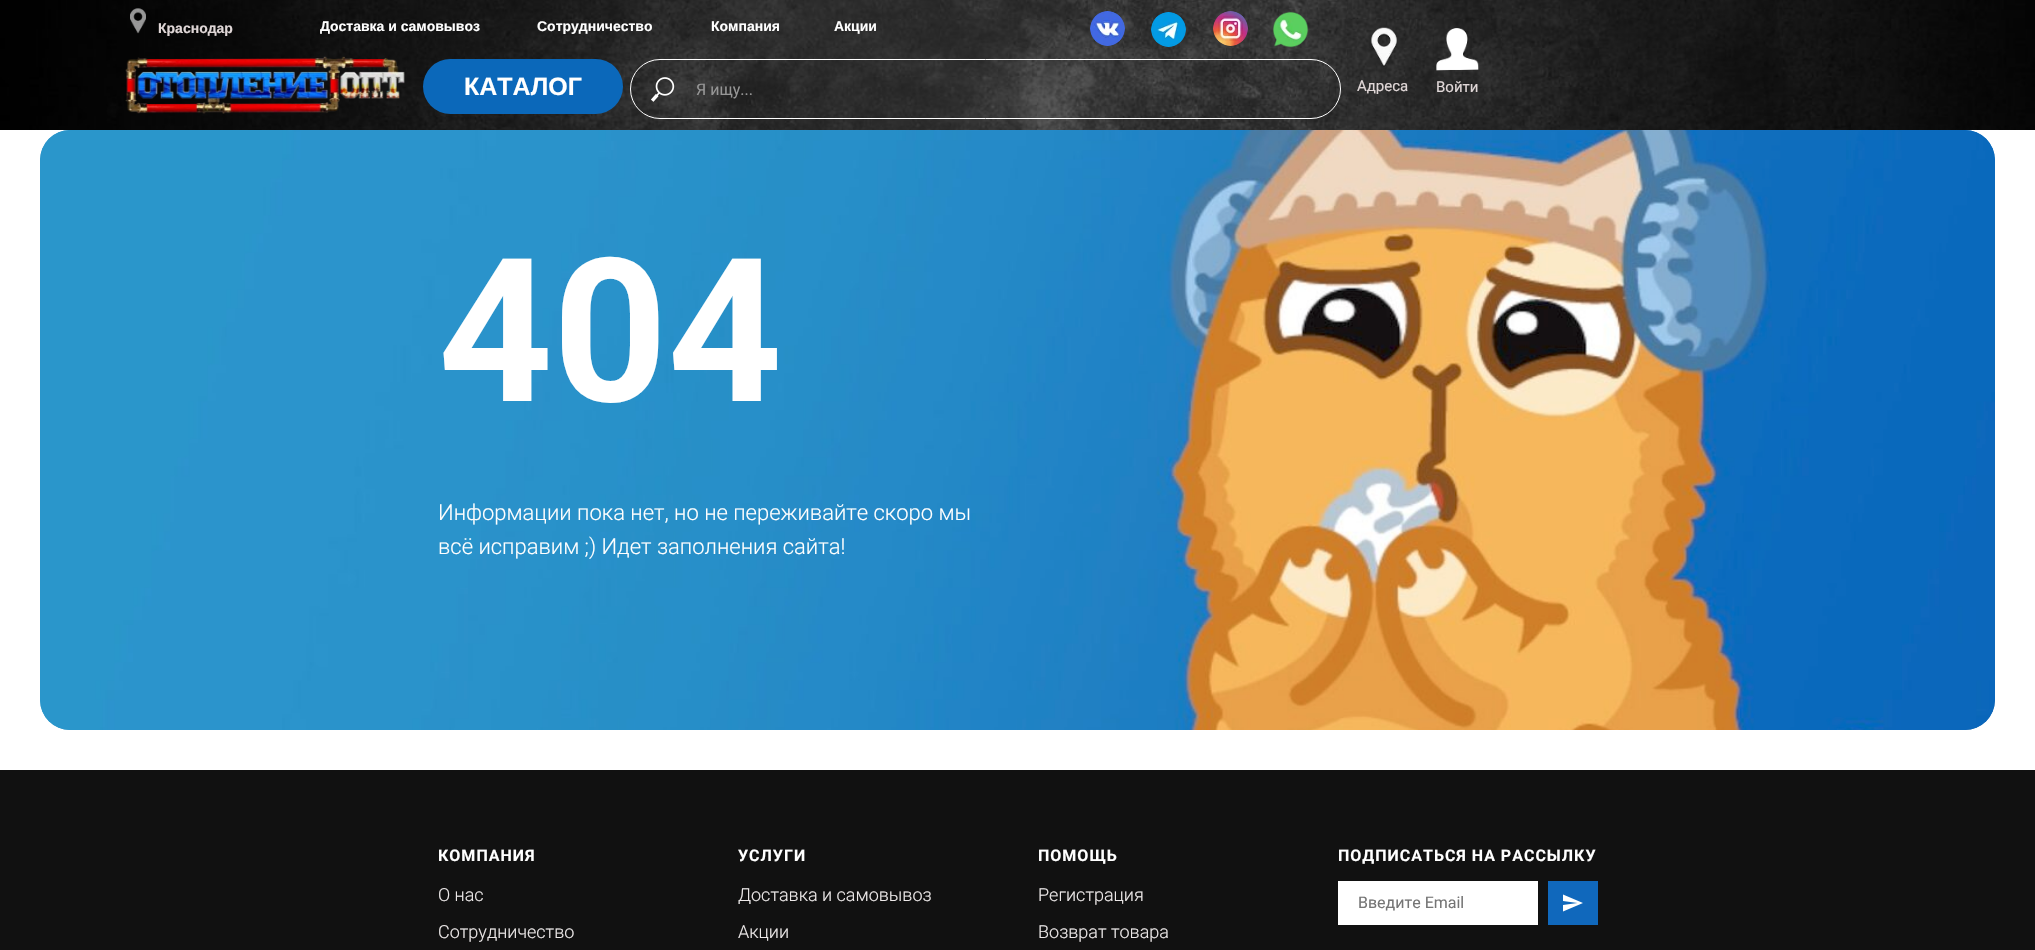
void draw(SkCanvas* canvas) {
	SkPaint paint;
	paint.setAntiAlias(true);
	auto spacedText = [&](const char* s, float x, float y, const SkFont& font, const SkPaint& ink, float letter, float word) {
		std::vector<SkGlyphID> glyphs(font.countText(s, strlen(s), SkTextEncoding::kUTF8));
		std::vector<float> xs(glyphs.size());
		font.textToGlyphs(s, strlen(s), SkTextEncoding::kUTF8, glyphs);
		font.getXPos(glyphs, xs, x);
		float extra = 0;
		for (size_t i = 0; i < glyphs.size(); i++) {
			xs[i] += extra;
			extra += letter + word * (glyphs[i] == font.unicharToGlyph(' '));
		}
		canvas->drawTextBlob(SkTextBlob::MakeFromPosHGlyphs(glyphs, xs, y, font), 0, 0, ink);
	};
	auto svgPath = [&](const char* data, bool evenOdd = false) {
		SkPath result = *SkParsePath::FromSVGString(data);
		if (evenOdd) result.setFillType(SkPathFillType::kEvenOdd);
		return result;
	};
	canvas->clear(0xffffffff);
	canvas->drawImageRect(SkImages::DeferredFromEncodedData(SkData::MakeFromFileName("img1.png")), SkRect::MakeXYWH(0, 0, 2035, 130), SkSamplingOptions());
	canvas->drawImageRect(SkImages::DeferredFromEncodedData(SkData::MakeFromFileName("img2.png")), SkRect::MakeXYWH(130, 8, 16, 26), SkSamplingOptions());
	SkFont f1(fontMgr->matchFamilyStyle("Liberation Sans", SkFontStyle::Bold()), 14);
	f1.setSubpixel(true);
	paint.setColor(0xffe0d7d7);
	canvas->drawString("Краснодар", 158, 33, f1, paint);
	paint.setColor(0xffffffff);
	canvas->drawString("Доставка и самовывоз", 320, 31, f1, paint);
	canvas->drawString("Сотрудничество", 537, 31, f1, paint);
	canvas->drawString("Компания", 711, 31, f1, paint);
	canvas->drawString("Акции", 834, 31, f1, paint);
	canvas->drawImageRect(SkImages::DeferredFromEncodedData(SkData::MakeFromFileName("img3.png")), SkRect::MakeXYWH(1090, 11, 35, 35), SkSamplingOptions());
	canvas->drawImageRect(SkImages::DeferredFromEncodedData(SkData::MakeFromFileName("img4.png")), SkRect::MakeXYWH(1151, 12, 35, 35), SkSamplingOptions());
	canvas->drawImageRect(SkImages::DeferredFromEncodedData(SkData::MakeFromFileName("img5.png")), SkRect::MakeXYWH(1213, 11, 35, 35), SkSamplingOptions());
	canvas->drawImageRect(SkImages::DeferredFromEncodedData(SkData::MakeFromFileName("img6.png")), SkRect::MakeXYWH(1272, 11, 37, 37), SkSamplingOptions());
	canvas->drawImageRect(SkImages::DeferredFromEncodedData(SkData::MakeFromFileName("img7.png")), SkRect::MakeXYWH(1371, 27, 26, 40), SkSamplingOptions());
	canvas->drawImageRect(SkImages::DeferredFromEncodedData(SkData::MakeFromFileName("img8.png")), SkRect::MakeXYWH(1436, 28, 43, 43), SkSamplingOptions());
	canvas->drawImageRect(SkImages::DeferredFromEncodedData(SkData::MakeFromFileName("img9.png")), SkRect::MakeXYWH(125, 56, 280, 58), SkSamplingOptions());
	paint.setColor(0xff0b68ba);
	canvas->drawRoundRect(SkRect::MakeXYWH(423, 59, 200, 55), 27.5, 27.5, paint);
	SkFont f2(fontMgr->matchFamilyStyle("Liberation Sans", SkFontStyle::Bold()), 25);
	f2.setSubpixel(true);
	paint.setColor(0xffffffff);
	canvas->drawString("КАТАЛОГ", 464, 95, f2, paint);
	paint.setStroke(true);
	paint.setStrokeWidth(1);
	canvas->drawRoundRect(SkRect::MakeXYWH(630.5, 59.5, 710, 59), 29.5, 29.5, paint);
	canvas->drawImageRect(SkImages::DeferredFromEncodedData(SkData::MakeFromFileName("img10.png")), SkRect::MakeXYWH(651, 77, 24, 25), SkSamplingOptions());
	SkFont f3(fontMgr->matchFamilyStyle("Roboto", SkFontStyle::Normal()), 16);
	f3.setSubpixel(true);
	paint.setStroke(false);
	paint.setColor(0xff969696);
	canvas->drawString("Я ищу...", 696, 95, f3, paint);
	SkFont f4(fontMgr->matchFamilyStyle("Roboto", SkFontStyle::Normal()), 15);
	f4.setSubpixel(true);
	paint.setColor(0xffe0d7d7);
	canvas->drawString("Адреса", 1357, 91, f4, paint);
	canvas->drawString("Войти", 1436, 92, f4, paint);
	canvas->drawImageRect(SkImages::DeferredFromEncodedData(SkData::MakeFromFileName("img11.png")), SkRect::MakeXYWH(40, 130, 1955, 600), SkSamplingOptions());
	canvas->drawImageRect(SkImages::DeferredFromEncodedData(SkData::MakeFromFileName("img12.png")), SkRect::MakeXYWH(40, 130, 1955, 600), SkSamplingOptions());
	SkFont f5(fontMgr->matchFamilyStyle("Roboto", SkFontStyle::Bold()), 200);
	f5.setSubpixel(true);
	paint.setColor(0xffffffff);
	canvas->drawString("404", 438, 401, f5, paint);
	SkFont f6(fontMgr->matchFamilyStyle("Roboto", SkFontStyle(300, SkFontStyle::kNormal_Width, SkFontStyle::kUpright_Slant)), 22);
	f6.setSubpixel(true);
	canvas->drawString("Информации пока нет, но не переживайте скоро мы", 438, 520, f6, paint);
	canvas->drawString("всё исправим ;) Идет заполнения сайта!", 438, 554, f6, paint);
	paint.setColor(0xff111111);
	canvas->drawRect(SkRect::MakeXYWH(0, 770, 2035, 180), paint);
	SkFont f7(fontMgr->matchFamilyStyle("Roboto", SkFontStyle::Bold()), 16);
	f7.setSubpixel(true);
	paint.setColor(0xffffffff);
	spacedText("КОМПАНИЯ", 438, 861, f7, paint, 1, 0);
	SkFont f8(fontMgr->matchFamilyStyle("Roboto", SkFontStyle(300, SkFontStyle::kNormal_Width, SkFontStyle::kUpright_Slant)), 18);
	f8.setSubpixel(true);
	paint.setColor(0xffede9e9);
	canvas->drawString("О нас", 438, 901, f8, paint);
	canvas->drawString("Сотрудничество", 438, 938, f8, paint);
	paint.setColor(0xffffffff);
	spacedText("УСЛУГИ", 738, 861, f7, paint, 1, 0);
	paint.setColor(0xffede9e9);
	canvas->drawString("Доставка и самовывоз", 738, 901, f8, paint);
	canvas->drawString("Акции", 738, 938, f8, paint);
	paint.setColor(0xffffffff);
	spacedText("ПОМОЩЬ", 1038, 861, f7, paint, 1, 0);
	paint.setColor(0xffede9e9);
	canvas->drawString("Регистрация", 1038, 901, f8, paint);
	canvas->drawString("Возврат товара", 1038, 938, f8, paint);
	paint.setColor(0xffffffff);
	spacedText("ПОДПИСАТЬСЯ НА РАССЫЛКУ", 1338, 861, f7, paint, 1, 0);
	canvas->drawRect(SkRect::MakeXYWH(1338, 881, 200, 44), paint);
	paint.setColor(0xff757575);
	canvas->drawString("Введите Email", 1358, 908, f3, paint);
	paint.setColor(0xff1068bc);
	canvas->drawRect(SkRect::MakeXYWH(1548, 881, 50, 44), paint);
	paint.setColor(0xffffffff);
	canvas->drawPath(svgPath("M1563 911.5L1583 903L1563 894.5V901L1577.5 903L1563 905Z"), paint);
}
